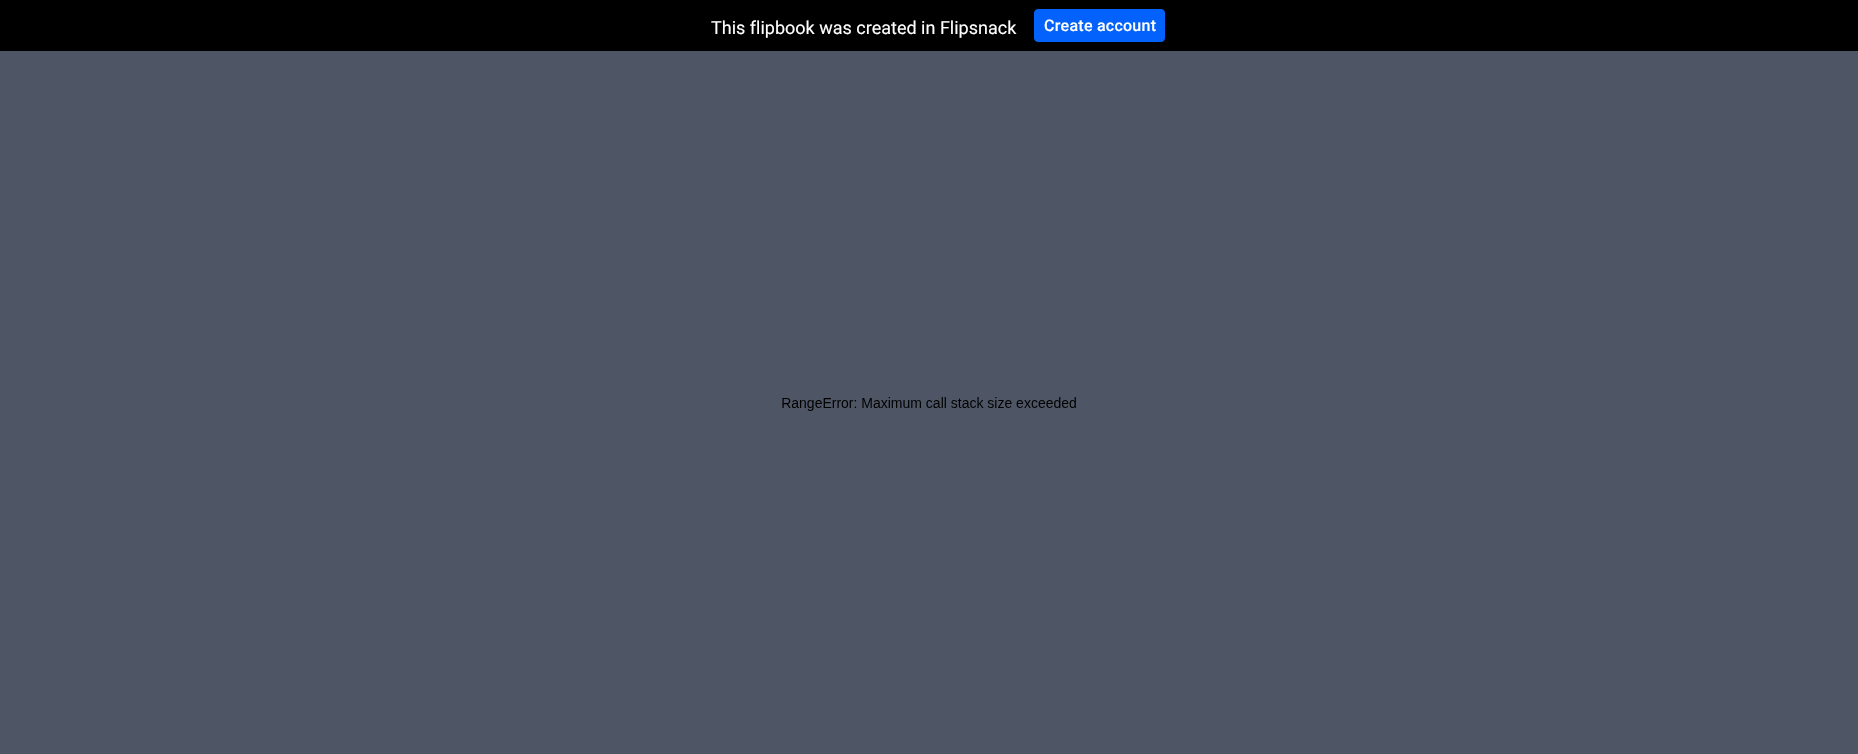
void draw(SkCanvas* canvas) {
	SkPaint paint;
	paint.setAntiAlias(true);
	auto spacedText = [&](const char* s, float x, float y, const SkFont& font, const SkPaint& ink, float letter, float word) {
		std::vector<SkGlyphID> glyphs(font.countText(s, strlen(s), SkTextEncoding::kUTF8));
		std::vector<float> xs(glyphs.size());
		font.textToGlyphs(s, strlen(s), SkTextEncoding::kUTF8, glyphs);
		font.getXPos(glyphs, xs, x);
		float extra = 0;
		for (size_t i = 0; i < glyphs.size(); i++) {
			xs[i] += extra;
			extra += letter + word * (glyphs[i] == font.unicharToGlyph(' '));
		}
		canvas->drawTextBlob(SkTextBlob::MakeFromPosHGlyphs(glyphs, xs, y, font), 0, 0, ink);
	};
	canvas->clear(0xff000000);
	SkFont f1(fontMgr->matchFamilyStyle("Roboto", SkFontStyle::Normal()), 18);
	f1.setSubpixel(true);
	paint.setColor(0xffffffff);
	canvas->drawString("This flipbook was created in Flipsnack", 711, 34, f1, paint);
	paint.setColor(0xff0362fc);
	canvas->drawRoundRect(SkRect::MakeXYWH(1034.5, 9.5, 130, 32), 3.5, 3.5, paint);
	paint.setStroke(true);
	paint.setStrokeWidth(1);
	canvas->drawRoundRect(SkRect::MakeXYWH(1034.5, 9.5, 130, 32), 3.5, 3.5, paint);
	SkFont f2(fontMgr->matchFamilyStyle("Roboto", SkFontStyle(500, SkFontStyle::kNormal_Width, SkFontStyle::kUpright_Slant)), 16);
	f2.setSubpixel(true);
	paint.setStroke(false);
	paint.setColor(0xffffffff);
	spacedText("Create account", 1044, 31, f2, paint, 0.25, 0);
	paint.setColor(0xff4e5565);
	canvas->drawRect(SkRect::MakeXYWH(0, 51, 1858, 703), paint);
	canvas->drawImageRect(SkImages::DeferredFromEncodedData(SkData::MakeFromFileName("img1.png")), SkRect::MakeXYWH(782, 397, 294, 14), SkSamplingOptions());
}
